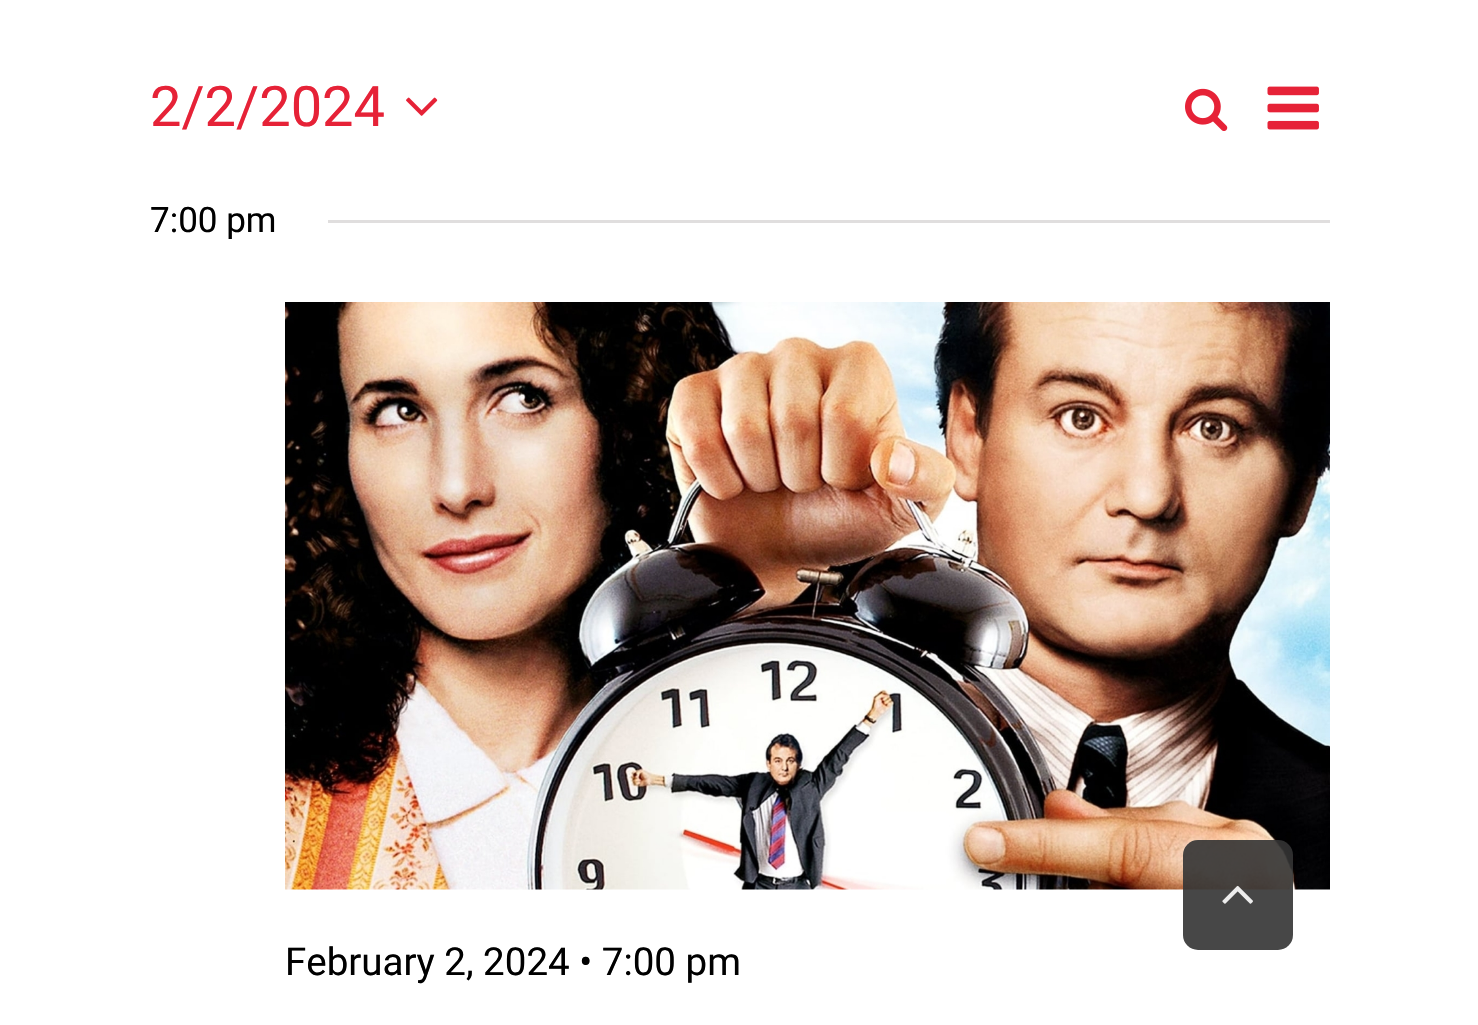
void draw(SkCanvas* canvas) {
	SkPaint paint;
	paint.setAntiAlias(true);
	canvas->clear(0xffffffff);
	SkFont f1(fontMgr->matchFamilyStyle("Roboto", SkFontStyle::Normal()), 56);
	f1.setSubpixel(true);
	paint.setColor(0xffe62237);
	canvas->drawString("2/2/2024", 150, 126, f1, paint);
	canvas->drawImageRect(SkImages::DeferredFromEncodedData(SkData::MakeFromFileName("img1.png")), SkRect::MakeXYWH(406, 97, 32, 19), SkSamplingOptions());
	canvas->drawImageRect(SkImages::DeferredFromEncodedData(SkData::MakeFromFileName("img2.png")), SkRect::MakeXYWH(1185, 88, 43, 43), SkSamplingOptions());
	canvas->drawImageRect(SkImages::DeferredFromEncodedData(SkData::MakeFromFileName("img3.png")), SkRect::MakeXYWH(1267, 86, 52, 44), SkSamplingOptions());
	SkFont f2(fontMgr->matchFamilyStyle("Roboto", SkFontStyle::Normal()), 35);
	f2.setSubpixel(true);
	paint.setColor(0xff000000);
	canvas->drawString("7:00 pm", 150, 232, f2, paint);
	paint.setColor(0xffe0dede);
	canvas->drawRect(SkRect::MakeXYWH(328, 220, 1002, 3), paint);
	canvas->drawImageRect(SkImages::DeferredFromEncodedData(SkData::MakeFromFileName("img4.png")), SkRect::MakeXYWH(285, 302, 1045, 588), SkSamplingOptions());
	SkFont f3(fontMgr->matchFamilyStyle("Roboto", SkFontStyle::Normal()), 38.5);
	f3.setSubpixel(true);
	paint.setColor(0xff000000);
	canvas->drawString("February 2, 2024 • 7:00 pm", 285, 975, f3, paint);
	paint.setColor(0xe6333333);
	canvas->drawRoundRect(SkRect::MakeXYWH(1183, 840, 110, 110), 15, 15, paint);
	canvas->drawImageRect(SkImages::DeferredFromEncodedData(SkData::MakeFromFileName("img5.png")), SkRect::MakeXYWH(1222, 885, 31, 19), SkSamplingOptions());
}
